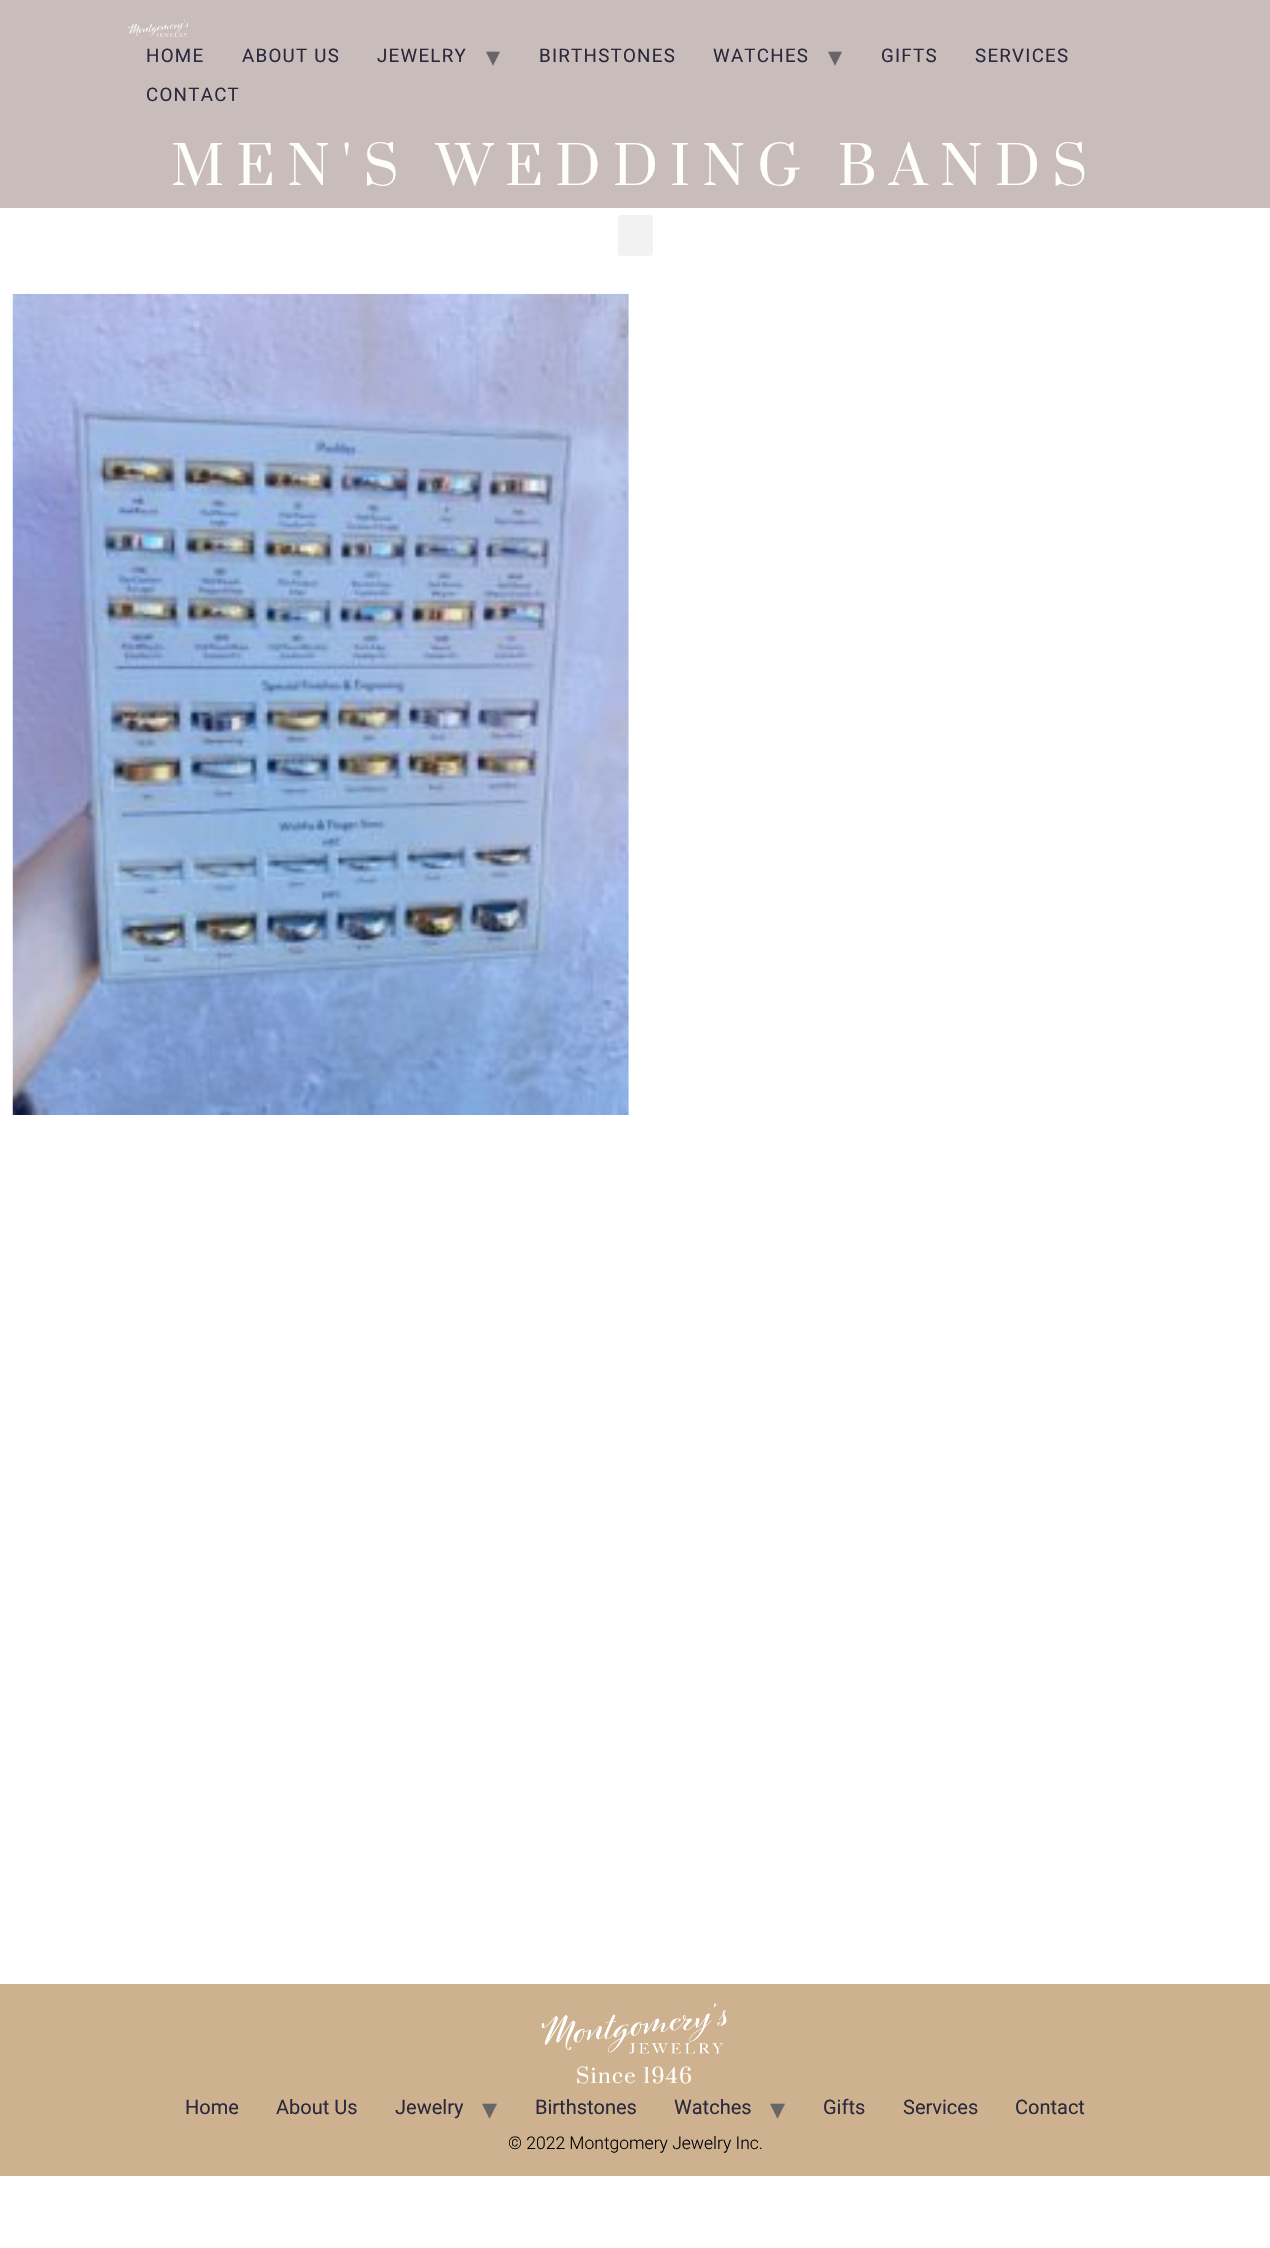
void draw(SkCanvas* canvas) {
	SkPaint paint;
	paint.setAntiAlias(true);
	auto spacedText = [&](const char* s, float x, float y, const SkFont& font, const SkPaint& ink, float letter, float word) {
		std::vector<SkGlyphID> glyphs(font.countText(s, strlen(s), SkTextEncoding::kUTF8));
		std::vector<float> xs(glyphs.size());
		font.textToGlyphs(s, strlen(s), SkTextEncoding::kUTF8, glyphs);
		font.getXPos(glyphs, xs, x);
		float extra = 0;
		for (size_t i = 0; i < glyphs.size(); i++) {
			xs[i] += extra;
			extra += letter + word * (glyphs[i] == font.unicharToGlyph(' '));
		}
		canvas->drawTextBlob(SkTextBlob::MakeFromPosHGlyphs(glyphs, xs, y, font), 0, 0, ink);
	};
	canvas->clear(0xffffffff);
	paint.setColor(0xffc9bdbb);
	canvas->drawRect(SkRect::MakeXYWH(0, 0, 1270, 208), paint);
	canvas->drawImageRect(SkImages::DeferredFromEncodedData(SkData::MakeFromFileName("img1.png")), SkRect::MakeXYWH(128, 20, 60, 17), SkSamplingOptions());
	SkFont f1(fontMgr->matchFamilyStyle("Roboto", SkFontStyle::Normal()), 18.75);
	f1.setSubpixel(true);
	paint.setColor(0xff2b293b);
	spacedText("HOME", 146, 62, f1, paint, 1.25, 0);
	spacedText("ABOUT US", 242, 62, f1, paint, 1.25, 0);
	spacedText("JEWELRY", 377, 62, f1, paint, 1.25, 0);
	SkFont f2(fontMgr->matchFamilyStyle("DejaVu Sans", SkFontStyle::Normal()), 28);
	f2.setSubpixel(true);
	paint.setColor(0xff666666);
	spacedText("▾", 486, 66, f2, paint, 1.25, 0);
	paint.setColor(0xff2b293b);
	spacedText("BIRTHSTONES", 539, 62, f1, paint, 1.25, 0);
	spacedText("WATCHES", 713, 62, f1, paint, 1.25, 0);
	paint.setColor(0xff666666);
	spacedText("▾", 828, 66, f2, paint, 1.25, 0);
	paint.setColor(0xff2b293b);
	spacedText("GIFTS", 881, 62, f1, paint, 1.25, 0);
	spacedText("SERVICES", 975, 62, f1, paint, 1.25, 0);
	spacedText("CONTACT", 146, 101, f1, paint, 1.25, 0);
	SkFont f3(fontMgr->matchFamilyStyle("Prata", SkFontStyle::Normal()), 52.5);
	f3.setSubpixel(true);
	paint.setColor(0xfffffff9);
	spacedText("MEN'S WEDDING BANDS", 171, 185, f3, paint, 12.5, 0);
	paint.setColor(0xfff2f2f2);
	canvas->drawRoundRect(SkRect::MakeXYWH(618, 215, 35, 41), 4, 4, paint);
	canvas->drawImageRect(SkImages::DeferredFromEncodedData(SkData::MakeFromFileName("img2.png")), SkRect::MakeXYWH(12, 293, 617, 822), SkSamplingOptions());
	paint.setColor(0xffceb290);
	canvas->drawRect(SkRect::MakeXYWH(0, 1984, 1270, 192), paint);
	canvas->drawImageRect(SkImages::DeferredFromEncodedData(SkData::MakeFromFileName("img3.png")), SkRect::MakeXYWH(541, 2003, 186, 51), SkSamplingOptions());
	SkFont f4(fontMgr->matchFamilyStyle("Prata", SkFontStyle::Normal()), 20);
	f4.setSubpixel(true);
	paint.setColor(0xfffffff9);
	spacedText("Since 1946", 576, 2083, f4, paint, 1.4, 0);
	SkFont f5(fontMgr->matchFamilyStyle("Roboto", SkFontStyle::Normal()), 20);
	f5.setSubpixel(true);
	paint.setColor(0xff2b293b);
	canvas->drawString("Home", 185, 2114, f5, paint);
	canvas->drawString("About Us", 276, 2114, f5, paint);
	canvas->drawString("Jewelry", 395, 2114, f5, paint);
	SkFont f6(fontMgr->matchFamilyStyle("DejaVu Sans", SkFontStyle::Normal()), 30);
	f6.setSubpixel(true);
	paint.setColor(0xff666666);
	canvas->drawString("▾", 482, 2119, f6, paint);
	paint.setColor(0xff2b293b);
	canvas->drawString("Birthstones", 535, 2114, f5, paint);
	canvas->drawString("Watches", 674, 2114, f5, paint);
	paint.setColor(0xff666666);
	canvas->drawString("▾", 770, 2119, f6, paint);
	paint.setColor(0xff2b293b);
	canvas->drawString("Gifts", 823, 2114, f5, paint);
	canvas->drawString("Services", 903, 2114, f5, paint);
	canvas->drawString("Contact", 1015, 2114, f5, paint);
	SkFont f7(fontMgr->matchFamilyStyle("Roboto", SkFontStyle(300, SkFontStyle::kNormal_Width, SkFontStyle::kUpright_Slant)), 17.5);
	f7.setSubpixel(true);
	paint.setColor(0xff000000);
	canvas->drawString("© 2022 Montgomery Jewelry Inc.", 508, 2149, f7, paint);
}
